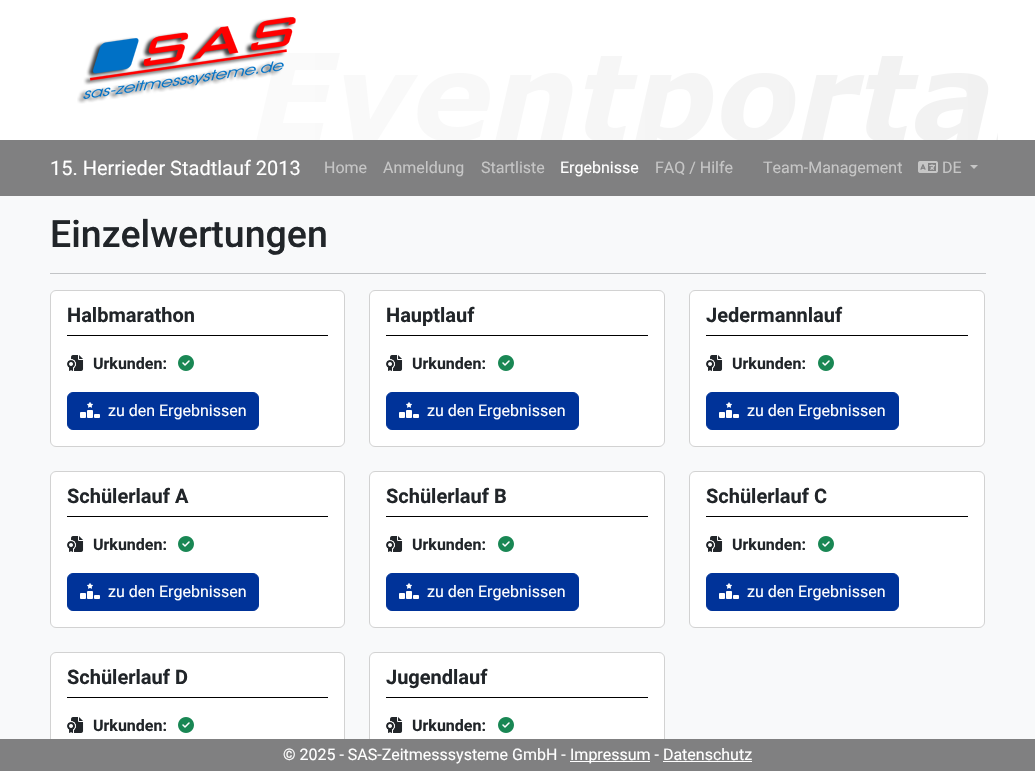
void draw(SkCanvas* canvas) {
	SkPaint paint;
	paint.setAntiAlias(true);
	auto svgPath = [&](const char* data, bool evenOdd = false) {
		SkPath result = *SkParsePath::FromSVGString(data);
		if (evenOdd) result.setFillType(SkPathFillType::kEvenOdd);
		return result;
	};
	canvas->clear(0xfff8f9fa);
	paint.setColor(0xffffffff);
	canvas->drawRect(SkRect::MakeXYWH(0, 0, 1035, 140), paint);
	canvas->drawImageRect(SkImages::DeferredFromEncodedData(SkData::MakeFromFileName("img1.png")), SkRect::MakeXYWH(77, 16, 921, 124), SkSamplingOptions());
	paint.setColor(0xff808081);
	canvas->drawRect(SkRect::MakeXYWH(0, 140, 1035, 56), paint);
	SkFont f1(fontMgr->matchFamilyStyle("Roboto", SkFontStyle::Normal()), 20);
	f1.setSubpixel(true);
	paint.setColor(0xffffffff);
	canvas->drawString("15. Herrieder Stadtlauf 2013", 50, 175, f1, paint);
	SkFont f2(fontMgr->matchFamilyStyle("Roboto", SkFontStyle::Normal()), 16);
	f2.setSubpixel(true);
	paint.setColor(0xffc6c6c6);
	canvas->drawString("Home", 324, 173, f2, paint);
	canvas->drawString("Anmeldung", 383, 173, f2, paint);
	canvas->drawString("Startliste", 481, 173, f2, paint);
	paint.setColor(0xffffffff);
	canvas->drawString("Ergebnisse", 560, 173, f2, paint);
	paint.setColor(0xffc6c6c6);
	canvas->drawString("FAQ / Hilfe", 655, 173, f2, paint);
	canvas->drawString("Team-Management", 763, 173, f2, paint);
	canvas->drawImageRect(SkImages::DeferredFromEncodedData(SkData::MakeFromFileName("img2.png")), SkRect::MakeXYWH(918, 161, 20, 12), SkSamplingOptions());
	canvas->drawString("DE", 942, 173, f2, paint);
	canvas->drawPath(svgPath("M970 165H978L974 169Z"), paint);
	SkFont f3(fontMgr->matchFamilyStyle("Roboto", SkFontStyle(500, SkFontStyle::kNormal_Width, SkFontStyle::kUpright_Slant)), 37.5);
	f3.setSubpixel(true);
	paint.setColor(0xff212529);
	canvas->drawString("Einzelwertungen", 50, 247, f3, paint);
	paint.setColor(0xffc2c4c6);
	canvas->drawRect(SkRect::MakeXYWH(50, 273, 936, 1), paint);
	paint.setColor(0xffffffff);
	canvas->drawRoundRect(SkRect::MakeXYWH(50.5, 290.5, 294, 156), 5.5, 5.5, paint);
	paint.setStroke(true);
	paint.setStrokeWidth(1);
	paint.setColor(0xffd2d2d2);
	canvas->drawRoundRect(SkRect::MakeXYWH(50.5, 290.5, 294, 156), 5.5, 5.5, paint);
	SkFont f4(fontMgr->matchFamilyStyle("Roboto", SkFontStyle::Bold()), 20);
	f4.setSubpixel(true);
	paint.setStroke(false);
	paint.setColor(0xff212529);
	canvas->drawString("Halbmarathon", 67, 322, f4, paint);
	paint.setColor(0xff000000);
	canvas->drawRect(SkRect::MakeXYWH(67, 335, 261, 1), paint);
	canvas->drawImageRect(SkImages::DeferredFromEncodedData(SkData::MakeFromFileName("img3.png")), SkRect::MakeXYWH(67, 355, 17, 16), SkSamplingOptions());
	SkFont f5(fontMgr->matchFamilyStyle("Roboto", SkFontStyle::Bold()), 16);
	f5.setSubpixel(true);
	paint.setColor(0xff212529);
	canvas->drawString("Urkunden:", 93, 369, f5, paint);
	canvas->drawImageRect(SkImages::DeferredFromEncodedData(SkData::MakeFromFileName("img4.png")), SkRect::MakeXYWH(178, 355, 16, 16), SkSamplingOptions());
	paint.setColor(0xff003399);
	canvas->drawRoundRect(SkRect::MakeXYWH(67.5, 392.5, 191, 37), 5.5, 5.5, paint);
	paint.setStroke(true);
	canvas->drawRoundRect(SkRect::MakeXYWH(67.5, 392.5, 191, 37), 5.5, 5.5, paint);
	canvas->drawImageRect(SkImages::DeferredFromEncodedData(SkData::MakeFromFileName("img5.png")), SkRect::MakeXYWH(80, 402, 20, 16), SkSamplingOptions());
	paint.setStroke(false);
	paint.setColor(0xffffffff);
	canvas->drawString("zu den Ergebnissen", 108, 416, f2, paint);
	canvas->drawRoundRect(SkRect::MakeXYWH(369.5, 290.5, 295, 156), 5.5, 5.5, paint);
	paint.setStroke(true);
	paint.setColor(0xffd2d2d2);
	canvas->drawRoundRect(SkRect::MakeXYWH(369.5, 290.5, 295, 156), 5.5, 5.5, paint);
	paint.setStroke(false);
	paint.setColor(0xff212529);
	canvas->drawString("Hauptlauf", 386, 322, f4, paint);
	paint.setColor(0xff000000);
	canvas->drawRect(SkRect::MakeXYWH(386, 335, 262, 1), paint);
	canvas->drawImageRect(SkImages::DeferredFromEncodedData(SkData::MakeFromFileName("img3.png")), SkRect::MakeXYWH(386, 355, 17, 16), SkSamplingOptions());
	paint.setColor(0xff212529);
	canvas->drawString("Urkunden:", 412, 369, f5, paint);
	canvas->drawImageRect(SkImages::DeferredFromEncodedData(SkData::MakeFromFileName("img4.png")), SkRect::MakeXYWH(498, 355, 16, 16), SkSamplingOptions());
	paint.setColor(0xff003399);
	canvas->drawRoundRect(SkRect::MakeXYWH(386.5, 392.5, 192, 37), 5.5, 5.5, paint);
	paint.setStroke(true);
	canvas->drawRoundRect(SkRect::MakeXYWH(386.5, 392.5, 192, 37), 5.5, 5.5, paint);
	canvas->drawImageRect(SkImages::DeferredFromEncodedData(SkData::MakeFromFileName("img5.png")), SkRect::MakeXYWH(399, 402, 20, 16), SkSamplingOptions());
	paint.setStroke(false);
	paint.setColor(0xffffffff);
	canvas->drawString("zu den Ergebnissen", 427, 416, f2, paint);
	canvas->drawRoundRect(SkRect::MakeXYWH(689.5, 290.5, 295, 156), 5.5, 5.5, paint);
	paint.setStroke(true);
	paint.setColor(0xffd2d2d2);
	canvas->drawRoundRect(SkRect::MakeXYWH(689.5, 290.5, 295, 156), 5.5, 5.5, paint);
	paint.setStroke(false);
	paint.setColor(0xff212529);
	canvas->drawString("Jedermannlauf", 706, 322, f4, paint);
	paint.setColor(0xff000000);
	canvas->drawRect(SkRect::MakeXYWH(706, 335, 262, 1), paint);
	canvas->drawImageRect(SkImages::DeferredFromEncodedData(SkData::MakeFromFileName("img3.png")), SkRect::MakeXYWH(706, 355, 17, 16), SkSamplingOptions());
	paint.setColor(0xff212529);
	canvas->drawString("Urkunden:", 732, 369, f5, paint);
	canvas->drawImageRect(SkImages::DeferredFromEncodedData(SkData::MakeFromFileName("img4.png")), SkRect::MakeXYWH(818, 355, 16, 16), SkSamplingOptions());
	paint.setColor(0xff003399);
	canvas->drawRoundRect(SkRect::MakeXYWH(706.5, 392.5, 192, 37), 5.5, 5.5, paint);
	paint.setStroke(true);
	canvas->drawRoundRect(SkRect::MakeXYWH(706.5, 392.5, 192, 37), 5.5, 5.5, paint);
	canvas->drawImageRect(SkImages::DeferredFromEncodedData(SkData::MakeFromFileName("img5.png")), SkRect::MakeXYWH(719, 402, 20, 16), SkSamplingOptions());
	paint.setStroke(false);
	paint.setColor(0xffffffff);
	canvas->drawString("zu den Ergebnissen", 747, 416, f2, paint);
	canvas->drawRoundRect(SkRect::MakeXYWH(50.5, 471.5, 294, 156), 5.5, 5.5, paint);
	paint.setStroke(true);
	paint.setColor(0xffd2d2d2);
	canvas->drawRoundRect(SkRect::MakeXYWH(50.5, 471.5, 294, 156), 5.5, 5.5, paint);
	paint.setStroke(false);
	paint.setColor(0xff212529);
	canvas->drawString("Schülerlauf A", 67, 503, f4, paint);
	paint.setColor(0xff000000);
	canvas->drawRect(SkRect::MakeXYWH(67, 516, 261, 1), paint);
	canvas->drawImageRect(SkImages::DeferredFromEncodedData(SkData::MakeFromFileName("img3.png")), SkRect::MakeXYWH(67, 536, 17, 16), SkSamplingOptions());
	paint.setColor(0xff212529);
	canvas->drawString("Urkunden:", 93, 550, f5, paint);
	canvas->drawImageRect(SkImages::DeferredFromEncodedData(SkData::MakeFromFileName("img4.png")), SkRect::MakeXYWH(178, 536, 16, 16), SkSamplingOptions());
	paint.setColor(0xff003399);
	canvas->drawRoundRect(SkRect::MakeXYWH(67.5, 573.5, 191, 37), 5.5, 5.5, paint);
	paint.setStroke(true);
	canvas->drawRoundRect(SkRect::MakeXYWH(67.5, 573.5, 191, 37), 5.5, 5.5, paint);
	canvas->drawImageRect(SkImages::DeferredFromEncodedData(SkData::MakeFromFileName("img5.png")), SkRect::MakeXYWH(80, 583, 20, 16), SkSamplingOptions());
	paint.setStroke(false);
	paint.setColor(0xffffffff);
	canvas->drawString("zu den Ergebnissen", 108, 597, f2, paint);
	canvas->drawRoundRect(SkRect::MakeXYWH(369.5, 471.5, 295, 156), 5.5, 5.5, paint);
	paint.setStroke(true);
	paint.setColor(0xffd2d2d2);
	canvas->drawRoundRect(SkRect::MakeXYWH(369.5, 471.5, 295, 156), 5.5, 5.5, paint);
	paint.setStroke(false);
	paint.setColor(0xff212529);
	canvas->drawString("Schülerlauf B", 386, 503, f4, paint);
	paint.setColor(0xff000000);
	canvas->drawRect(SkRect::MakeXYWH(386, 516, 262, 1), paint);
	canvas->drawImageRect(SkImages::DeferredFromEncodedData(SkData::MakeFromFileName("img3.png")), SkRect::MakeXYWH(386, 536, 17, 16), SkSamplingOptions());
	paint.setColor(0xff212529);
	canvas->drawString("Urkunden:", 412, 550, f5, paint);
	canvas->drawImageRect(SkImages::DeferredFromEncodedData(SkData::MakeFromFileName("img4.png")), SkRect::MakeXYWH(498, 536, 16, 16), SkSamplingOptions());
	paint.setColor(0xff003399);
	canvas->drawRoundRect(SkRect::MakeXYWH(386.5, 573.5, 192, 37), 5.5, 5.5, paint);
	paint.setStroke(true);
	canvas->drawRoundRect(SkRect::MakeXYWH(386.5, 573.5, 192, 37), 5.5, 5.5, paint);
	canvas->drawImageRect(SkImages::DeferredFromEncodedData(SkData::MakeFromFileName("img5.png")), SkRect::MakeXYWH(399, 583, 20, 16), SkSamplingOptions());
	paint.setStroke(false);
	paint.setColor(0xffffffff);
	canvas->drawString("zu den Ergebnissen", 427, 597, f2, paint);
	canvas->drawRoundRect(SkRect::MakeXYWH(689.5, 471.5, 295, 156), 5.5, 5.5, paint);
	paint.setStroke(true);
	paint.setColor(0xffd2d2d2);
	canvas->drawRoundRect(SkRect::MakeXYWH(689.5, 471.5, 295, 156), 5.5, 5.5, paint);
	paint.setStroke(false);
	paint.setColor(0xff212529);
	canvas->drawString("Schülerlauf C", 706, 503, f4, paint);
	paint.setColor(0xff000000);
	canvas->drawRect(SkRect::MakeXYWH(706, 516, 262, 1), paint);
	canvas->drawImageRect(SkImages::DeferredFromEncodedData(SkData::MakeFromFileName("img3.png")), SkRect::MakeXYWH(706, 536, 17, 16), SkSamplingOptions());
	paint.setColor(0xff212529);
	canvas->drawString("Urkunden:", 732, 550, f5, paint);
	canvas->drawImageRect(SkImages::DeferredFromEncodedData(SkData::MakeFromFileName("img4.png")), SkRect::MakeXYWH(818, 536, 16, 16), SkSamplingOptions());
	paint.setColor(0xff003399);
	canvas->drawRoundRect(SkRect::MakeXYWH(706.5, 573.5, 192, 37), 5.5, 5.5, paint);
	paint.setStroke(true);
	canvas->drawRoundRect(SkRect::MakeXYWH(706.5, 573.5, 192, 37), 5.5, 5.5, paint);
	canvas->drawImageRect(SkImages::DeferredFromEncodedData(SkData::MakeFromFileName("img5.png")), SkRect::MakeXYWH(719, 583, 20, 16), SkSamplingOptions());
	paint.setStroke(false);
	paint.setColor(0xffffffff);
	canvas->drawString("zu den Ergebnissen", 747, 597, f2, paint);
	canvas->drawRoundRect(SkRect::MakeXYWH(50.5, 652.5, 294, 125), 5.5, 5.5, paint);
	paint.setStroke(true);
	paint.setColor(0xffd2d2d2);
	canvas->drawRoundRect(SkRect::MakeXYWH(50.5, 652.5, 294, 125), 5.5, 5.5, paint);
	paint.setStroke(false);
	paint.setColor(0xff212529);
	canvas->drawString("Schülerlauf D", 67, 684, f4, paint);
	paint.setColor(0xff000000);
	canvas->drawRect(SkRect::MakeXYWH(67, 697, 261, 1), paint);
	canvas->drawImageRect(SkImages::DeferredFromEncodedData(SkData::MakeFromFileName("img3.png")), SkRect::MakeXYWH(67, 717, 17, 16), SkSamplingOptions());
	paint.setColor(0xff212529);
	canvas->drawString("Urkunden:", 93, 731, f5, paint);
	canvas->drawImageRect(SkImages::DeferredFromEncodedData(SkData::MakeFromFileName("img4.png")), SkRect::MakeXYWH(178, 717, 16, 16), SkSamplingOptions());
	paint.setColor(0xffffffff);
	canvas->drawRoundRect(SkRect::MakeXYWH(369.5, 652.5, 295, 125), 5.5, 5.5, paint);
	paint.setStroke(true);
	paint.setColor(0xffd2d2d2);
	canvas->drawRoundRect(SkRect::MakeXYWH(369.5, 652.5, 295, 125), 5.5, 5.5, paint);
	paint.setStroke(false);
	paint.setColor(0xff212529);
	canvas->drawString("Jugendlauf", 386, 684, f4, paint);
	paint.setColor(0xff000000);
	canvas->drawRect(SkRect::MakeXYWH(386, 697, 262, 1), paint);
	canvas->drawImageRect(SkImages::DeferredFromEncodedData(SkData::MakeFromFileName("img3.png")), SkRect::MakeXYWH(386, 717, 17, 16), SkSamplingOptions());
	paint.setColor(0xff212529);
	canvas->drawString("Urkunden:", 412, 731, f5, paint);
	canvas->drawImageRect(SkImages::DeferredFromEncodedData(SkData::MakeFromFileName("img4.png")), SkRect::MakeXYWH(498, 717, 16, 16), SkSamplingOptions());
	paint.setColor(0xff808081);
	canvas->drawRect(SkRect::MakeXYWH(0, 739, 1035, 32), paint);
	paint.setColor(0xffffffff);
	canvas->drawString("© 2025 - SAS-Zeitmesssysteme GmbH -", 283, 760, f2, paint);
	canvas->drawRect(SkRect::MakeXYWH(570, 761, 80, 1), paint);
	canvas->drawString("Impressum - Datenschutz", 570, 760, f2, paint);
	canvas->drawRect(SkRect::MakeXYWH(663, 761, 89, 1), paint);
}
